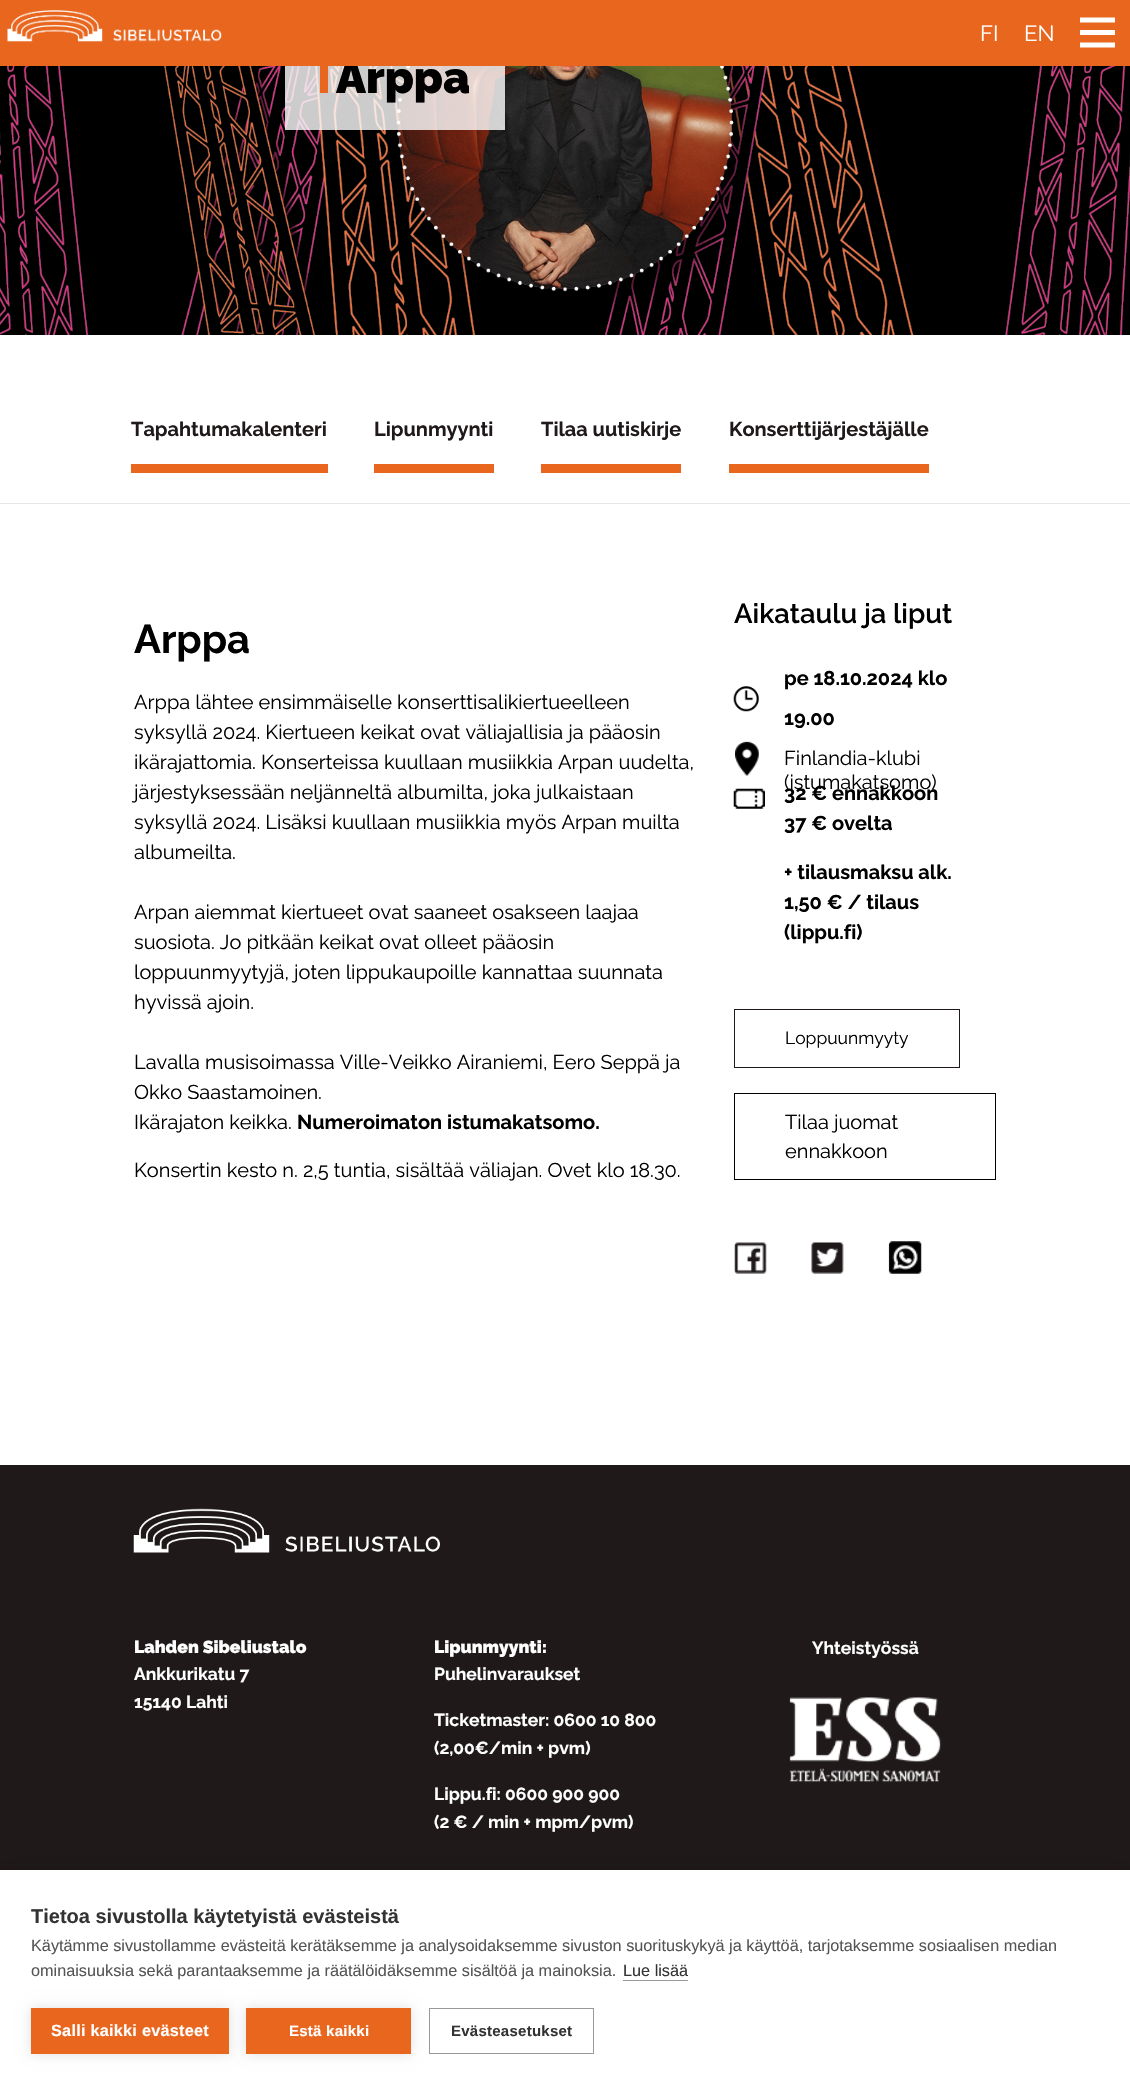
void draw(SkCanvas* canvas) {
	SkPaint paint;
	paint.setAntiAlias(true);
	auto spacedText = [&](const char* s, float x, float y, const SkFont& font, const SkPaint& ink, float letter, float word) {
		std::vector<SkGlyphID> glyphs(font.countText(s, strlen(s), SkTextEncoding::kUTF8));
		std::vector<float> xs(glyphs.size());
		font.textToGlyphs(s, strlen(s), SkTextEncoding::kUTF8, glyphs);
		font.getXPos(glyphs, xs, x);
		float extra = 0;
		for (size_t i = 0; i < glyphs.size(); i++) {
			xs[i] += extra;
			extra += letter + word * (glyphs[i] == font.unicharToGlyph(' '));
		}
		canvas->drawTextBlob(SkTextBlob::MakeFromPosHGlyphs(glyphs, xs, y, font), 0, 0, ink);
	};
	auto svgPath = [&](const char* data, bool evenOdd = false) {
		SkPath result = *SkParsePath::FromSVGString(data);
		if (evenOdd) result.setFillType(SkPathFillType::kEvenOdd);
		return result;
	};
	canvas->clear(0xffffffff);
	canvas->drawImageRect(SkImages::DeferredFromEncodedData(SkData::MakeFromFileName("img2.png")), SkRect::MakeXYWH(0, 66, 1130, 269), SkSamplingOptions());
	paint.setColor(0xccffffff);
	canvas->drawRect(SkRect::MakeXYWH(285, 66, 220, 64), paint);
	paint.setColor(0xffe9661e);
	canvas->drawRect(SkRect::MakeXYWH(320, 60, 8, 33), paint);
	SkFont f1(fontMgr->matchFamilyStyle("Raleway", SkFontStyle(900, SkFontStyle::kNormal_Width, SkFontStyle::kUpright_Slant)), 45);
	f1.setSubpixel(true);
	paint.setColor(0xff000000);
	canvas->drawString("Arppa", 336, 93, f1, paint);
	paint.setColor(0xffe9661e);
	canvas->drawRect(SkRect::MakeXYWH(0, 0, 1130, 66), paint);
	canvas->drawImageRect(SkImages::DeferredFromEncodedData(SkData::MakeFromFileName("img1.png")), SkRect::MakeXYWH(7, 10, 215, 32), SkSamplingOptions());
	paint.setColor(0xffffffff);
	canvas->drawPath(svgPath("M1080 35H1115V30H1080ZM1080 47.5H1115V42.5H1080ZM1080 17.5V22.5H1115V17.5Z"), paint);
	SkFont f2(fontMgr->matchFamilyStyle("Raleway", SkFontStyle::Normal()), 22);
	f2.setSubpixel(true);
	canvas->drawString("FI", 980, 41, f2, paint);
	canvas->drawString("EN", 1024, 41, f2, paint);
	paint.setColor(0xffe6e6e6);
	canvas->drawRect(SkRect::MakeXYWH(0, 503, 1130, 1), paint);
	paint.setColor(0xffe9661e);
	canvas->drawRect(SkRect::MakeXYWH(131, 464, 197, 9), paint);
	SkFont f3(fontMgr->matchFamilyStyle("Raleway", SkFontStyle::Bold()), 20);
	f3.setSubpixel(true);
	paint.setColor(0xff1f191a);
	canvas->drawString("Tapahtumakalenteri", 131, 436, f3, paint);
	paint.setColor(0xffe9661e);
	canvas->drawRect(SkRect::MakeXYWH(374, 464, 120, 9), paint);
	paint.setColor(0xff1f191a);
	canvas->drawString("Lipunmyynti", 374, 436, f3, paint);
	paint.setColor(0xffe9661e);
	canvas->drawRect(SkRect::MakeXYWH(541, 464, 140, 9), paint);
	paint.setColor(0xff1f191a);
	canvas->drawString("Tilaa uutiskirje", 541, 436, f3, paint);
	paint.setColor(0xffe9661e);
	canvas->drawRect(SkRect::MakeXYWH(729, 464, 200, 9), paint);
	paint.setColor(0xff1f191a);
	canvas->drawString("Konserttijärjestäjälle", 729, 436, f3, paint);
	SkFont f4(fontMgr->matchFamilyStyle("Raleway", SkFontStyle::Bold()), 40);
	f4.setSubpixel(true);
	paint.setColor(0xff000000);
	canvas->drawString("Arppa", 134, 653, f4, paint);
	SkFont f5(fontMgr->matchFamilyStyle("Raleway", SkFontStyle::Normal()), 20);
	f5.setSubpixel(true);
	canvas->drawString("Arppa lähtee ensimmäiselle konserttisalikiertueelleen", 134, 709, f5, paint);
	canvas->drawString("syksyllä 2024. Kiertueen keikat ovat väliajallisia ja pääosin", 134, 739, f5, paint);
	canvas->drawString("ikärajattomia. Konserteissa kuullaan musiikkia Arpan uudelta,", 134, 769, f5, paint);
	canvas->drawString("järjestyksessään neljänneltä albumilta, joka julkaistaan", 134, 799, f5, paint);
	canvas->drawString("syksyllä 2024. Lisäksi kuullaan musiikkia myös Arpan muilta", 134, 829, f5, paint);
	canvas->drawString("albumeilta.", 134, 859, f5, paint);
	canvas->drawString("Arpan aiemmat kiertueet ovat saaneet osakseen laajaa", 134, 919, f5, paint);
	canvas->drawString("suosiota. Jo pitkään keikat ovat olleet pääosin", 134, 949, f5, paint);
	canvas->drawString("loppuunmyytyjä, joten lippukaupoille kannattaa suunnata", 134, 979, f5, paint);
	canvas->drawString("hyvissä ajoin.", 134, 1009, f5, paint);
	canvas->drawString("Lavalla musisoimassa Ville-Veikko Airaniemi, Eero Seppä ja", 134, 1069, f5, paint);
	canvas->drawString("Okko Saastamoinen.", 134, 1099, f5, paint);
	canvas->drawString("Ikärajaton keikka.", 134, 1129, f5, paint);
	canvas->drawString("Numeroimaton istumakatsomo.", 297, 1129, f3, paint);
	canvas->drawString("Konsertin kesto n. 2,5 tuntia, sisältää väliajan. Ovet klo 18.30.", 134, 1177, f5, paint);
	SkFont f6(fontMgr->matchFamilyStyle("Raleway", SkFontStyle(600, SkFontStyle::kNormal_Width, SkFontStyle::kUpright_Slant)), 27.5);
	f6.setSubpixel(true);
	canvas->drawString("Aikataulu ja liput", 734, 623, f6, paint);
	canvas->drawImageRect(SkImages::DeferredFromEncodedData(SkData::MakeFromFileName("img3.png")), SkRect::MakeXYWH(733, 686, 26, 26), SkSamplingOptions());
	canvas->drawString("pe 18.10.2024 klo", 784, 685, f3, paint);
	canvas->drawString("19.00", 784, 725, f3, paint);
	canvas->drawImageRect(SkImages::DeferredFromEncodedData(SkData::MakeFromFileName("img4.png")), SkRect::MakeXYWH(735, 741, 24, 35), SkSamplingOptions());
	canvas->drawString("Finlandia-klubi", 784, 765, f5, paint);
	canvas->drawString("(istumakatsomo)", 784, 789, f5, paint);
	canvas->drawImageRect(SkImages::DeferredFromEncodedData(SkData::MakeFromFileName("img5.png")), SkRect::MakeXYWH(733, 788, 32, 21), SkSamplingOptions());
	canvas->drawString("32 € ennakkoon", 784, 800, f3, paint);
	canvas->drawString("37 € ovelta", 784, 830, f3, paint);
	canvas->drawString("+ tilausmaksu alk.", 784, 879, f3, paint);
	canvas->drawString("1,50 € / tilaus", 784, 909, f3, paint);
	canvas->drawString("(lippu.fi)", 784, 939, f3, paint);
	paint.setStroke(true);
	paint.setStrokeWidth(1);
	paint.setColor(0xff1f191a);
	canvas->drawRect(SkRect::MakeXYWH(734.5, 1009.5, 225, 58), paint);
	SkFont f7(fontMgr->matchFamilyStyle("Raleway", SkFontStyle::Normal()), 17.5);
	f7.setSubpixel(true);
	paint.setStroke(false);
	paint.setColor(0xff000000);
	canvas->drawString("Loppuunmyyty", 785, 1044, f7, paint);
	paint.setStroke(true);
	canvas->drawRect(SkRect::MakeXYWH(734.5, 1093.5, 261, 86), paint);
	paint.setStroke(false);
	canvas->drawString("Tilaa juomat", 785, 1129, f5, paint);
	canvas->drawString("ennakkoon", 785, 1158, f5, paint);
	canvas->drawImageRect(SkImages::DeferredFromEncodedData(SkData::MakeFromFileName("img6.png")), SkRect::MakeXYWH(734, 1242, 33, 32), SkSamplingOptions());
	canvas->drawImageRect(SkImages::DeferredFromEncodedData(SkData::MakeFromFileName("img7.png")), SkRect::MakeXYWH(811, 1242, 33, 32), SkSamplingOptions());
	canvas->drawImageRect(SkImages::DeferredFromEncodedData(SkData::MakeFromFileName("img8.png")), SkRect::MakeXYWH(888, 1241, 34, 33), SkSamplingOptions());
	paint.setColor(0xff1f191a);
	canvas->drawRect(SkRect::MakeXYWH(0, 1465, 1130, 405), paint);
	canvas->drawImageRect(SkImages::DeferredFromEncodedData(SkData::MakeFromFileName("img9.png")), SkRect::MakeXYWH(133, 1508, 307, 45), SkSamplingOptions());
	SkFont f8(fontMgr->matchFamilyStyle("Raleway", SkFontStyle(900, SkFontStyle::kNormal_Width, SkFontStyle::kUpright_Slant)), 17.5);
	f8.setSubpixel(true);
	paint.setColor(0xffffffff);
	canvas->drawString("Lahden Sibeliustalo", 134, 1653, f8, paint);
	SkFont f9(fontMgr->matchFamilyStyle("Raleway", SkFontStyle::Bold()), 17.5);
	f9.setSubpixel(true);
	canvas->drawString("Ankkurikatu 7", 134, 1680, f9, paint);
	canvas->drawString("15140 Lahti", 134, 1708, f9, paint);
	canvas->drawString("Lipunmyynti:", 434, 1653, f8, paint);
	canvas->drawString("Puhelinvaraukset", 434, 1680, f9, paint);
	canvas->drawString("Ticketmaster: 0600 10 800", 434, 1726, f9, paint);
	canvas->drawString("(2,00€/min + pvm)", 434, 1754, f9, paint);
	canvas->drawString("Lippu.fi: 0600 900 900", 434, 1800, f9, paint);
	canvas->drawString("(2 € / min + mpm/pvm)", 434, 1828, f9, paint);
	canvas->drawString("Yhteistyössä", 812, 1654, f9, paint);
	canvas->drawImageRect(SkImages::DeferredFromEncodedData(SkData::MakeFromFileName("img10.png")), SkRect::MakeXYWH(789, 1697, 152, 85), SkSamplingOptions());
	paint.setColor(0x1a000000);
	paint.setMaskFilter(SkMaskFilter::MakeBlur(kNormal_SkBlurStyle, 12.5));
	canvas->drawRect(SkRect::MakeXYWH(0, 1870, 1130, 215), paint);
	paint.setMaskFilter(nullptr);
	paint.setColor(0xffffffff);
	canvas->drawRect(SkRect::MakeXYWH(0, 1870, 1130, 215), paint);
	SkFont f10(fontMgr->matchFamilyStyle("Liberation Sans", SkFontStyle::Bold()), 20);
	f10.setSubpixel(true);
	paint.setColor(0xff333333);
	canvas->drawString("Tietoa sivustolla käytetyistä evästeistä", 31, 1923, f10, paint);
	SkFont f11(fontMgr->matchFamilyStyle("Liberation Sans", SkFontStyle::Normal()), 16.25);
	f11.setSubpixel(true);
	paint.setColor(0xff555555);
	canvas->drawString("Käytämme sivustollamme evästeitä kerätäksemme ja analysoidaksemme sivuston suorituskykyä ja käyttöä, tarjotaksemme sosiaalisen median", 31, 1951, f11, paint);
	canvas->drawString("ominaisuuksia sekä parantaaksemme ja räätälöidäksemme sisältöä ja mainoksia.", 31, 1976, f11, paint);
	paint.setColor(0xff333333);
	canvas->drawString("Lue lisää", 623, 1976, f11, paint);
	paint.setColor(0xff999999);
	canvas->drawRect(SkRect::MakeXYWH(623, 1980, 65, 1), paint);
	paint.setColor(0x1f000000);
	paint.setMaskFilter(SkMaskFilter::MakeBlur(kNormal_SkBlurStyle, 6));
	canvas->drawRect(SkRect::MakeXYWH(31, 2008, 198, 46), paint);
	paint.setMaskFilter(nullptr);
	paint.setColor(0xffe9661e);
	canvas->drawRect(SkRect::MakeXYWH(31, 2008, 198, 46), paint);
	SkFont f12(fontMgr->matchFamilyStyle("Liberation Sans", SkFontStyle::Bold()), 16.25);
	f12.setSubpixel(true);
	paint.setColor(0xffffffff);
	spacedText("Salli kaikki evästeet", 51, 2036, f12, paint, 0.25, 0);
	paint.setColor(0x1f000000);
	paint.setMaskFilter(SkMaskFilter::MakeBlur(kNormal_SkBlurStyle, 6));
	canvas->drawRect(SkRect::MakeXYWH(246, 2008, 165, 46), paint);
	paint.setMaskFilter(nullptr);
	paint.setColor(0xffe9661e);
	canvas->drawRect(SkRect::MakeXYWH(246, 2008, 165, 46), paint);
	SkFont f13(fontMgr->matchFamilyStyle("Liberation Sans", SkFontStyle::Bold()), 15);
	f13.setSubpixel(true);
	paint.setColor(0xffffffff);
	spacedText("Estä kaikki", 289, 2036, f13, paint, 0.25, 0);
	paint.setStroke(true);
	paint.setColor(0xff999999);
	canvas->drawRect(SkRect::MakeXYWH(429.5, 2008.5, 164, 45), paint);
	paint.setStroke(false);
	paint.setColor(0xff333333);
	spacedText("Evästeasetukset", 451, 2036, f13, paint, 0.25, 0);
}
